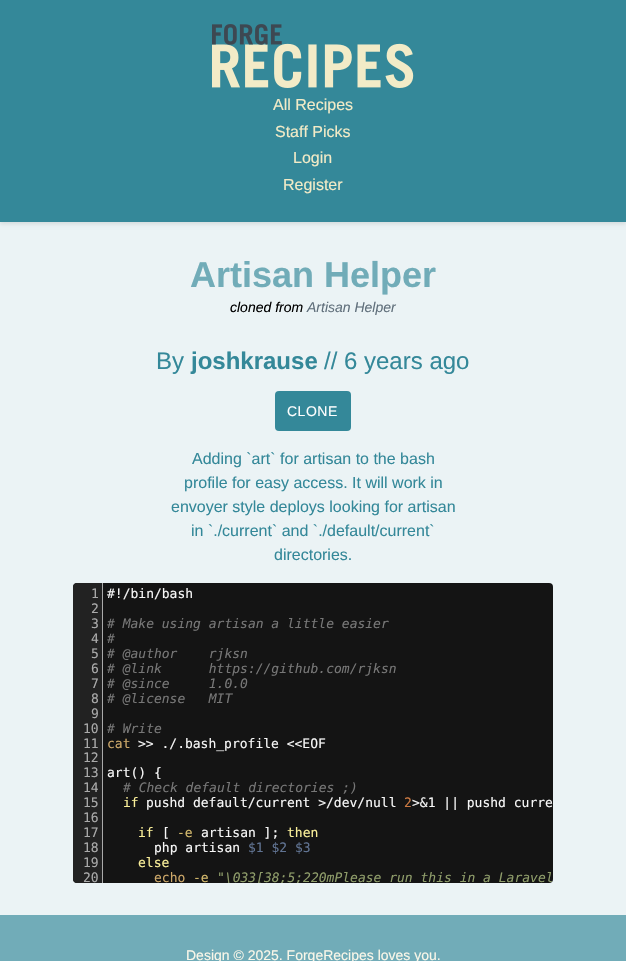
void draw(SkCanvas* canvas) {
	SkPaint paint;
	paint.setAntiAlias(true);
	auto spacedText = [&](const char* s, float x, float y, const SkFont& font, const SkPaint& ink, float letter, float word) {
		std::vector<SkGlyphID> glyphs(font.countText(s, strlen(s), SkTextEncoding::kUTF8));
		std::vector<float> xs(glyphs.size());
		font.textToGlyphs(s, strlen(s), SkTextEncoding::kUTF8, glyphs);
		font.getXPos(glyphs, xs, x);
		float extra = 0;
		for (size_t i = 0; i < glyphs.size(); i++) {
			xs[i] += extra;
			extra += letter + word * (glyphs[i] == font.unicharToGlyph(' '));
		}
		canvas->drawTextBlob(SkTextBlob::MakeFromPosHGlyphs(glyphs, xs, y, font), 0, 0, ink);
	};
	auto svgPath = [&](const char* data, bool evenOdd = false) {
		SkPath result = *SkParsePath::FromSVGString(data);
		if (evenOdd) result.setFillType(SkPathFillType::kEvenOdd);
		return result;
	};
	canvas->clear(0xffebf3f5);
	paint.setColor(0x1a000000);
	paint.setMaskFilter(SkMaskFilter::MakeBlur(kNormal_SkBlurStyle, 2));
	canvas->drawRect(SkRect::MakeXYWH(0, 2, 626, 222), paint);
	paint.setMaskFilter(nullptr);
	paint.setColor(0xff348899);
	canvas->drawRect(SkRect::MakeXYWH(0, 0, 626, 222), paint);
	canvas->drawImageRect(SkImages::DeferredFromEncodedData(SkData::MakeFromFileName("img1.png")), SkRect::MakeXYWH(212, 24, 202, 64), SkSamplingOptions());
	SkFont f1(fontMgr->matchFamilyStyle("Liberation Sans", SkFontStyle::Normal()), 16);
	f1.setSubpixel(true);
	paint.setColor(0xfff2ebc7);
	canvas->drawString("All Recipes", 273, 110, f1, paint);
	canvas->drawString("Staff Picks", 275, 137, f1, paint);
	canvas->drawString("Login", 293, 163, f1, paint);
	canvas->drawString("Register", 283, 190, f1, paint);
	SkFont f2(fontMgr->matchFamilyStyle("Liberation Sans", SkFontStyle::Bold()), 36);
	f2.setSubpixel(true);
	paint.setColor(0xff71acb8);
	canvas->drawString("Artisan Helper", 190, 287, f2, paint);
	SkFont f3(fontMgr->matchFamilyStyle("Liberation Sans", SkFontStyle::Italic()), 14);
	f3.setSubpixel(true);
	paint.setColor(0xff000000);
	canvas->drawString("cloned from", 230, 312, f3, paint);
	paint.setColor(0xff606f7b);
	canvas->drawString("Artisan Helper", 307, 312, f3, paint);
	SkFont f4(fontMgr->matchFamilyStyle("Liberation Sans", SkFontStyle::Normal()), 24);
	f4.setSubpixel(true);
	paint.setColor(0xff348899);
	canvas->drawString("By", 156, 369, f4, paint);
	SkFont f5(fontMgr->matchFamilyStyle("Liberation Sans", SkFontStyle::Bold()), 24);
	f5.setSubpixel(true);
	canvas->drawString("joshkrause", 191, 369, f5, paint);
	canvas->drawString("// 6 years ago", 324, 369, f4, paint);
	canvas->drawRoundRect(SkRect::MakeXYWH(275, 391, 76, 40), 4, 4, paint);
	SkFont f6(fontMgr->matchFamilyStyle("Liberation Sans", SkFontStyle::Normal()), 14);
	f6.setSubpixel(true);
	paint.setColor(0xffffffff);
	spacedText("CLONE", 287, 416, f6, paint, 0.5, 0);
	paint.setColor(0xff348899);
	canvas->drawString("Adding `art` for artisan to the bash", 192, 464, f1, paint);
	canvas->drawString("profile for easy access. It will work in", 184, 488, f1, paint);
	canvas->drawString("envoyer style deploys looking for artisan", 171, 512, f1, paint);
	canvas->drawString("in `./current` and `./default/current`", 191, 536, f1, paint);
	canvas->drawString("directories.", 274, 560, f1, paint);
	paint.setColor(0xff141414);
	canvas->drawRoundRect(SkRect::MakeXYWH(73, 583, 480, 300), 4, 4, paint);
	paint.setColor(0xff222222);
	canvas->drawPath(svgPath("M77 583H102V883H77C75 883 73 881 73 879V587C73 585 75 583 77 583Z"), paint);
	paint.setColor(0xffaaaaaa);
	canvas->drawRect(SkRect::MakeXYWH(102, 583, 1, 300), paint);
	SkFont f7(fontMgr->matchFamilyStyle("DejaVu Sans Mono", SkFontStyle::Normal()), 13);
	f7.setSubpixel(true);
	canvas->drawString("1", 91, 598, f7, paint);
	paint.setColor(0xfff7f7f7);
	canvas->drawString("#!/bin/bash", 107, 598, f7, paint);
	paint.setColor(0xffaaaaaa);
	canvas->drawString("2", 91, 613, f7, paint);
	canvas->drawString("3", 91, 628, f7, paint);
	SkFont f8(fontMgr->matchFamilyStyle("DejaVu Sans Mono", SkFontStyle::Italic()), 13);
	f8.setSubpixel(true);
	paint.setColor(0xff777777);
	canvas->drawString("# Make using artisan a little easier", 107, 628, f8, paint);
	paint.setColor(0xffaaaaaa);
	canvas->drawString("4", 91, 643, f7, paint);
	paint.setColor(0xff777777);
	canvas->drawString("#", 107, 643, f8, paint);
	paint.setColor(0xffaaaaaa);
	canvas->drawString("5", 91, 658, f7, paint);
	paint.setColor(0xff777777);
	canvas->drawString("# @author    rjksn", 107, 658, f8, paint);
	paint.setColor(0xffaaaaaa);
	canvas->drawString("6", 91, 673, f7, paint);
	paint.setColor(0xff777777);
	canvas->drawString("# @link      https://github.com/rjksn", 107, 673, f8, paint);
	paint.setColor(0xffaaaaaa);
	canvas->drawString("7", 91, 688, f7, paint);
	paint.setColor(0xff777777);
	canvas->drawString("# @since     1.0.0", 107, 688, f8, paint);
	paint.setColor(0xffaaaaaa);
	canvas->drawString("8", 91, 703, f7, paint);
	paint.setColor(0xff777777);
	canvas->drawString("# @license   MIT", 107, 703, f8, paint);
	paint.setColor(0xffaaaaaa);
	canvas->drawString("9", 91, 718, f7, paint);
	canvas->drawString("10", 83, 733, f7, paint);
	paint.setColor(0xff777777);
	canvas->drawString("# Write", 107, 733, f8, paint);
	paint.setColor(0xffaaaaaa);
	canvas->drawString("11", 83, 748, f7, paint);
	paint.setColor(0xffcda869);
	canvas->drawString("cat", 107, 748, f7, paint);
	paint.setColor(0xfff7f7f7);
	canvas->drawString(">> ./.bash_profile <<EOF", 138, 748, f7, paint);
	paint.setColor(0xffaaaaaa);
	canvas->drawString("12", 83, 762, f7, paint);
	canvas->drawString("13", 83, 777, f7, paint);
	paint.setColor(0xfff7f7f7);
	canvas->drawString("art() {", 107, 777, f7, paint);
	paint.setColor(0xffaaaaaa);
	canvas->drawString("14", 83, 792, f7, paint);
	paint.setColor(0xff777777);
	canvas->drawString("# Check default directories ;)", 123, 792, f8, paint);
	paint.setColor(0xffaaaaaa);
	canvas->drawString("15", 83, 807, f7, paint);
	paint.setColor(0xfff9ee98);
	canvas->drawString("if", 123, 807, f7, paint);
	paint.setColor(0xfff7f7f7);
	canvas->drawString("pushd default/current >/dev/null", 146, 807, f7, paint);
	paint.setColor(0xffca7841);
	canvas->drawString("2", 404, 807, f7, paint);
	paint.setColor(0xfff7f7f7);
	canvas->drawString(">&1 || pushd curre", 412, 807, f7, paint);
	paint.setColor(0xffaaaaaa);
	canvas->drawString("16", 83, 822, f7, paint);
	canvas->drawString("17", 83, 837, f7, paint);
	paint.setColor(0xfff9ee98);
	canvas->drawString("if", 138, 837, f7, paint);
	paint.setColor(0xfff7f7f7);
	canvas->drawString("[", 162, 837, f7, paint);
	paint.setColor(0xffd6bb6d);
	canvas->drawString("-e", 177, 837, f7, paint);
	paint.setColor(0xfff7f7f7);
	canvas->drawString("artisan ];", 201, 837, f7, paint);
	paint.setColor(0xfff9ee98);
	canvas->drawString("then", 287, 837, f7, paint);
	paint.setColor(0xffaaaaaa);
	canvas->drawString("18", 83, 852, f7, paint);
	paint.setColor(0xfff7f7f7);
	canvas->drawString("php artisan", 154, 852, f7, paint);
	paint.setColor(0xff607392);
	canvas->drawString("$1 $2 $3", 248, 852, f7, paint);
	paint.setColor(0xffaaaaaa);
	canvas->drawString("19", 83, 867, f7, paint);
	paint.setColor(0xfff9ee98);
	canvas->drawString("else", 138, 867, f7, paint);
	paint.setColor(0xffaaaaaa);
	canvas->drawString("20", 83, 882, f7, paint);
	paint.setColor(0xffcda869);
	canvas->drawString("echo", 154, 882, f7, paint);
	paint.setColor(0xffd6bb6d);
	canvas->drawString("-e", 193, 882, f7, paint);
	canvas->save();
	canvas->clipPath(svgPath("M77 583H549C551 583 553 585 553 587V879C553 881 551 883 549 883H77C75 883 73 881 73 879V587C73 585 75 583 77 583Z"), true);
	paint.setColor(0xff8f9d6a);
	canvas->drawString("\"\\033[38;5;220mPlease run this in a Laravel", 217, 882, f8, paint);
	canvas->restore();
	paint.setColor(0xff71acb8);
	canvas->drawRect(SkRect::MakeXYWH(0, 915, 626, 46), paint);
	paint.setColor(0xfffaf7e9);
	canvas->drawString("Design © 2025. ForgeRecipes loves you.", 186, 960, f6, paint);
}
